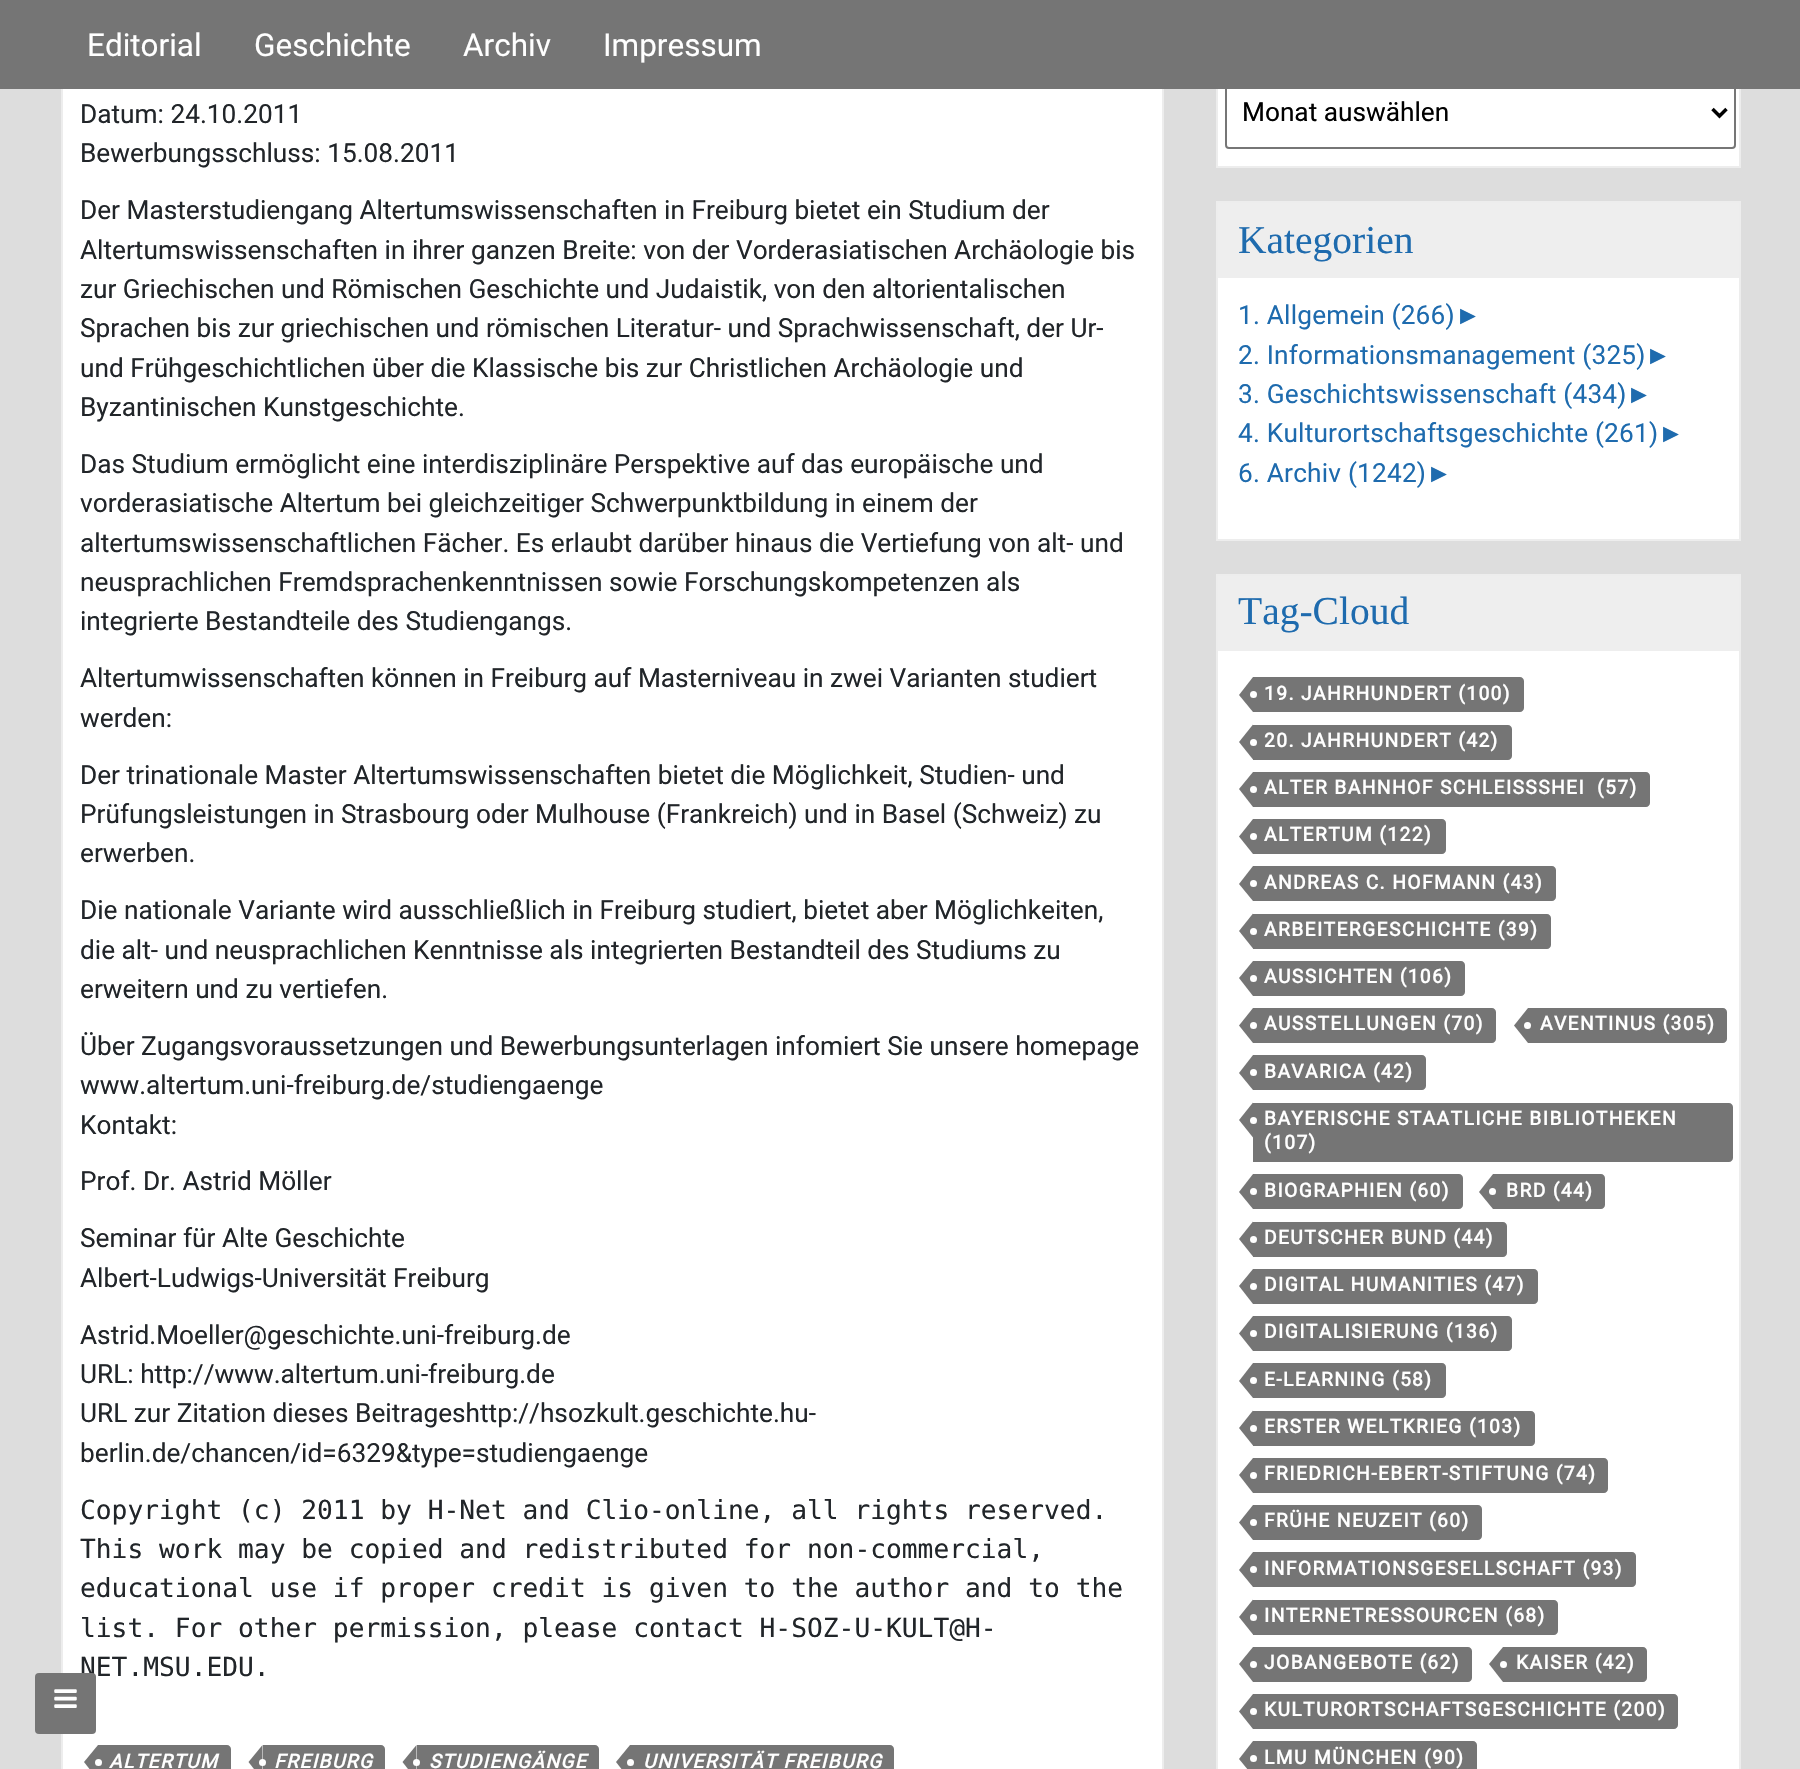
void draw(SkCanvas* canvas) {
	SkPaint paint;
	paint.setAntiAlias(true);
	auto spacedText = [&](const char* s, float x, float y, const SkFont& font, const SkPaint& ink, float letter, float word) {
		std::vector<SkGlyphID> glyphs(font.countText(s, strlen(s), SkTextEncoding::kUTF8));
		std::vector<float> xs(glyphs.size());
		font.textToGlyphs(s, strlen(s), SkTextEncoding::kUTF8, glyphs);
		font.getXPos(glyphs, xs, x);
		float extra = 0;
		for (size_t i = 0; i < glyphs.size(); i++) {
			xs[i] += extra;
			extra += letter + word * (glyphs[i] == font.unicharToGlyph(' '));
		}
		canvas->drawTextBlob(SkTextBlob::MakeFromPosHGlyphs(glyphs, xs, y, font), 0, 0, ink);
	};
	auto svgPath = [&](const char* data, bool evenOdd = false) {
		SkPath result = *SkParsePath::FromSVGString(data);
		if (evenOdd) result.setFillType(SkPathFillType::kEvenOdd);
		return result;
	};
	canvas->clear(0xffdddddd);
	paint.setColor(0xffffffff);
	canvas->drawRect(SkRect::MakeXYWH(63, 89, 1099, 1680), paint);
	paint.setStroke(true);
	paint.setStrokeWidth(2);
	paint.setColor(0xffededed);
	canvas->drawRect(SkRect::MakeXYWH(62, -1, 1101, 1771), paint);
	paint.setStroke(false);
	paint.setColor(0xffffffff);
	canvas->drawRect(SkRect::MakeXYWH(1218, 89, 521, 77), paint);
	paint.setStroke(true);
	paint.setColor(0xffededed);
	canvas->drawRect(SkRect::MakeXYWH(1217, -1, 523, 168), paint);
	paint.setColor(0xff767676);
	canvas->drawRoundRect(SkRect::MakeXYWH(1226, 76, 509, 72), 3, 3, paint);
	paint.setStroke(false);
	paint.setColor(0xff757575);
	canvas->drawRect(SkRect::MakeXYWH(0, 0, 1800, 89), paint);
	SkFont f1(fontMgr->matchFamilyStyle("Roboto", SkFontStyle::Normal()), 31.5);
	f1.setSubpixel(true);
	paint.setColor(0xffffffff);
	canvas->drawString("Editorial", 87, 56, f1, paint);
	canvas->drawString("Geschichte", 254, 56, f1, paint);
	canvas->drawString("Archiv", 463, 56, f1, paint);
	canvas->drawString("Impressum", 603, 56, f1, paint);
	SkFont f2(fontMgr->matchFamilyStyle("DejaVu Sans Mono", SkFontStyle::Normal()), 26.25);
	f2.setSubpixel(true);
	paint.setColor(0xff212529);
	canvas->drawString("NET.MSU.EDU.", 80, 1676, f2, paint);
	paint.setColor(0xff757575);
	canvas->drawRoundRect(SkRect::MakeXYWH(35, 1673, 61, 61), 4, 4, paint);
	canvas->drawImageRect(SkImages::DeferredFromEncodedData(SkData::MakeFromFileName("img1.png")), SkRect::MakeXYWH(54, 1689, 23, 19), SkSamplingOptions());
	SkFont f3(fontMgr->matchFamilyStyle("Roboto", SkFontStyle::Normal()), 26.25);
	f3.setSubpixel(true);
	paint.setColor(0xff212529);
	canvas->drawString("Datum: 24.10.2011", 80, 123, f3, paint);
	canvas->drawString("Bewerbungsschluss: 15.08.2011", 80, 162, f3, paint);
	canvas->drawString("Der Masterstudiengang Altertumswissenschaften in Freiburg bietet ein Studium der", 80, 219, f3, paint);
	canvas->drawString("Altertumswissenschaften in ihrer ganzen Breite: von der Vorderasiatischen Archäologie bis", 80, 259, f3, paint);
	canvas->drawString("zur Griechischen und Römischen Geschichte und Judaistik, von den altorientalischen", 80, 298, f3, paint);
	canvas->drawString("Sprachen bis zur griechischen und römischen Literatur- und Sprachwissenschaft, der Ur-", 80, 337, f3, paint);
	canvas->drawString("und Frühgeschichtlichen über die Klassische bis zur Christlichen Archäologie und", 80, 377, f3, paint);
	canvas->drawString("Byzantinischen Kunstgeschichte.", 80, 416, f3, paint);
	canvas->drawString("Das Studium ermöglicht eine interdisziplinäre Perspektive auf das europäische und", 80, 473, f3, paint);
	canvas->drawString("vorderasiatische Altertum bei gleichzeitiger Schwerpunktbildung in einem der", 80, 512, f3, paint);
	canvas->drawString("altertumswissenschaftlichen Fächer. Es erlaubt darüber hinaus die Vertiefung von alt- und", 80, 552, f3, paint);
	canvas->drawString("neusprachlichen Fremdsprachenkenntnissen sowie Forschungskompetenzen als", 80, 591, f3, paint);
	canvas->drawString("integrierte Bestandteile des Studiengangs.", 80, 630, f3, paint);
	canvas->drawString("Altertumwissenschaften können in Freiburg auf Masterniveau in zwei Varianten studiert", 80, 687, f3, paint);
	canvas->drawString("werden:", 80, 727, f3, paint);
	canvas->drawString("Der trinationale Master Altertumswissenschaften bietet die Möglichkeit, Studien- und", 80, 784, f3, paint);
	canvas->drawString("Prüfungsleistungen in Strasbourg oder Mulhouse (Frankreich) und in Basel (Schweiz) zu", 80, 823, f3, paint);
	canvas->drawString("erwerben.", 80, 862, f3, paint);
	canvas->drawString("Die nationale Variante wird ausschließlich in Freiburg studiert, bietet aber Möglichkeiten,", 80, 919, f3, paint);
	canvas->drawString("die alt- und neusprachlichen Kenntnisse als integrierten Bestandteil des Studiums zu", 80, 959, f3, paint);
	canvas->drawString("erweitern und zu vertiefen.", 80, 998, f3, paint);
	canvas->drawString("Über Zugangsvoraussetzungen und Bewerbungsunterlagen infomiert Sie unsere homepage", 80, 1055, f3, paint);
	canvas->drawString("www.altertum.uni-freiburg.de/studiengaenge", 80, 1094, f3, paint);
	canvas->drawString("Kontakt:", 80, 1134, f3, paint);
	canvas->drawString("Prof. Dr. Astrid Möller", 80, 1190, f3, paint);
	canvas->drawString("Seminar für Alte Geschichte", 80, 1247, f3, paint);
	canvas->drawString("Albert-Ludwigs-Universität Freiburg", 80, 1287, f3, paint);
	canvas->drawString("Astrid.Moeller@geschichte.uni-freiburg.de", 80, 1344, f3, paint);
	canvas->drawString("URL: http://www.altertum.uni-freiburg.de", 80, 1383, f3, paint);
	canvas->drawString("URL zur Zitation dieses Beitrageshttp://hsozkult.geschichte.hu-", 80, 1422, f3, paint);
	canvas->drawString("berlin.de/chancen/id=6329&type=studiengaenge", 80, 1462, f3, paint);
	canvas->drawString("Copyright (c) 2011 by H-Net and Clio-online, all rights reserved.", 80, 1519, f2, paint);
	canvas->drawString("This work may be copied and redistributed for non-commercial,", 80, 1558, f2, paint);
	canvas->drawString("educational use if proper credit is given to the author and to the", 80, 1597, f2, paint);
	canvas->drawString("list. For other permission, please contact H-SOZ-U-KULT@H-", 80, 1637, f2, paint);
	paint.setColor(0xff757575);
	canvas->drawPath(svgPath("M98 1745H227C229 1745 231 1747 231 1749V1769C231 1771 229 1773 227 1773H98Z"), paint);
	canvas->drawPath(svgPath("M98 1745V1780L84 1762Z"), paint);
	paint.setColor(0xffffffff);
	canvas->drawCircle(98.5, 1762.5, 3.5, paint);
	SkFont f4(fontMgr->matchFamilyStyle("Roboto", SkFontStyle::BoldItalic()), 19.25);
	f4.setSubpixel(true);
	spacedText("ALTERTUM", 109, 1768, f4, paint, 1.4, 0);
	paint.setColor(0xff757575);
	canvas->drawPath(svgPath("M263 1745H381C383 1745 385 1747 385 1749V1769C385 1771 383 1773 381 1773H263Z"), paint);
	canvas->drawPath(svgPath("M262.5 1745V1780L248.5 1762Z"), paint);
	paint.setColor(0xffffffff);
	spacedText("FREIBURG", 274, 1768, f4, paint, 1.4, 0);
	canvas->drawCircle(262.5, 1762.5, 3.5, paint);
	paint.setColor(0xff757575);
	canvas->drawPath(svgPath("M417 1745H595C597 1745 599 1747 599 1749V1769C599 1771 597 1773 595 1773H417Z"), paint);
	canvas->drawPath(svgPath("M416.5 1745V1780L402.5 1762Z"), paint);
	paint.setColor(0xffffffff);
	spacedText("STUDIENGÄNGE", 429, 1768, f4, paint, 1.4, 0);
	canvas->drawCircle(416.5, 1762.5, 3.5, paint);
	paint.setColor(0xff757575);
	canvas->drawPath(svgPath("M630 1745H890C892 1745 894 1747 894 1749V1769C894 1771 892 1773 890 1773H630Z"), paint);
	canvas->drawPath(svgPath("M630 1745V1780L616 1762Z"), paint);
	paint.setColor(0xffffffff);
	canvas->drawCircle(630.5, 1762.5, 3.5, paint);
	spacedText("UNIVERSITÄT FREIBURG", 643, 1768, f4, paint, 1.4, 0);
	paint.setStroke(true);
	paint.setStrokeWidth(3.5);
	paint.setColor(0xff000000);
	canvas->drawPath(svgPath("M1712.5 109L1719.5 116L1726.5 109"), paint);
	paint.setStroke(false);
	canvas->drawString("Monat auswählen", 1242, 121, f3, paint);
	paint.setColor(0xffffffff);
	canvas->drawRect(SkRect::MakeXYWH(1218, 278, 521, 261), paint);
	paint.setStroke(true);
	paint.setStrokeWidth(2);
	paint.setColor(0xffededed);
	canvas->drawRect(SkRect::MakeXYWH(1217, 202, 523, 338), paint);
	paint.setStroke(false);
	paint.setColor(0xffeeeeee);
	canvas->drawRect(SkRect::MakeXYWH(1218, 203, 521, 75), paint);
	SkFont f5(fontMgr->matchFamilyStyle("Liberation Serif", SkFontStyle::Normal()), 39.5);
	f5.setSubpixel(true);
	paint.setColor(0xff1e6bae);
	canvas->drawString("Kategorien", 1238, 253, f5, paint);
	spacedText("1. Allgemein (266)", 1238, 324, f3, paint, 0.2, 0);
	SkFont f6(fontMgr->matchFamilyStyle("Liberation Serif", SkFontStyle::Normal()), 26.25);
	f6.setSubpixel(true);
	spacedText("►", 1455, 324, f6, paint, 0.2, 0);
	spacedText("2. Informationsmanagement (325)", 1238, 364, f3, paint, 0.2, 0);
	spacedText("►", 1645, 364, f6, paint, 0.2, 0);
	spacedText("3. Geschichtswissenschaft (434)", 1238, 403, f3, paint, 0.2, 0);
	spacedText("►", 1626, 403, f6, paint, 0.2, 0);
	spacedText("4. Kulturortschaftsgeschichte (261)", 1238, 442, f3, paint, 0.2, 0);
	spacedText("►", 1658, 442, f6, paint, 0.2, 0);
	spacedText("6. Archiv (1242)", 1238, 482, f3, paint, 0.2, 0);
	spacedText("►", 1426, 482, f6, paint, 0.2, 0);
	paint.setColor(0xffffffff);
	canvas->drawRect(SkRect::MakeXYWH(1218, 651, 521, 1118), paint);
	paint.setStroke(true);
	paint.setColor(0xffededed);
	canvas->drawRect(SkRect::MakeXYWH(1217, 575, 523, 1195), paint);
	paint.setStroke(false);
	paint.setColor(0xffeeeeee);
	canvas->drawRect(SkRect::MakeXYWH(1218, 576, 521, 75), paint);
	paint.setColor(0xff1e6bae);
	canvas->drawString("Tag-Cloud", 1238, 624, f5, paint);
	paint.setColor(0xff757575);
	canvas->drawPath(svgPath("M1253 677H1520C1522 677 1524 679 1524 681V708C1524 710 1522 712 1520 712H1253Z"), paint);
	canvas->drawPath(svgPath("M1253 677V712L1239 695Z"), paint);
	paint.setColor(0xffffffff);
	canvas->drawCircle(1253.5, 694.5, 3.5, paint);
	SkFont f7(fontMgr->matchFamilyStyle("Roboto", SkFontStyle::Bold()), 19.25);
	f7.setSubpixel(true);
	spacedText("19. JAHRHUNDERT (100)", 1264, 700, f7, paint, 1.4, 0);
	paint.setColor(0xff757575);
	canvas->drawPath(svgPath("M1253 725H1508C1510 725 1512 727 1512 729V756C1512 758 1510 760 1508 760H1253Z"), paint);
	canvas->drawPath(svgPath("M1253 724.5V759.5L1239 742Z"), paint);
	paint.setColor(0xffffffff);
	canvas->drawCircle(1253.5, 742.5, 3.5, paint);
	spacedText("20. JAHRHUNDERT (42)", 1264, 747, f7, paint, 1.4, 0);
	paint.setColor(0xff757575);
	canvas->drawPath(svgPath("M1253 772H1646C1648 772 1650 774 1650 776V803C1650 805 1648 807 1646 807H1253Z"), paint);
	canvas->drawPath(svgPath("M1253 772V807L1239 789Z"), paint);
	paint.setColor(0xffffffff);
	canvas->drawCircle(1253.5, 789.5, 3.5, paint);
	spacedText("ALTER BAHNHOF SCHLEISSSHEI", 1264, 794, f7, paint, 1.4, 0);
	spacedText("(57)", 1597, 794, f7, paint, 1.4, 0);
	paint.setColor(0xff757575);
	canvas->drawPath(svgPath("M1253 819H1442C1444 819 1446 821 1446 823V850C1446 852 1444 854 1442 854H1253Z"), paint);
	canvas->drawPath(svgPath("M1253 819V854L1239 836.5Z"), paint);
	paint.setColor(0xffffffff);
	canvas->drawCircle(1253.5, 836.5, 3.5, paint);
	spacedText("ALTERTUM (122)", 1264, 841, f7, paint, 1.4, 0);
	paint.setColor(0xff757575);
	canvas->drawPath(svgPath("M1253 866H1552C1554 866 1556 868 1556 870V897C1556 899 1554 901 1552 901H1253Z"), paint);
	canvas->drawPath(svgPath("M1253 866V901L1239 884Z"), paint);
	paint.setColor(0xffffffff);
	canvas->drawCircle(1253.5, 883.5, 3.5, paint);
	spacedText("ANDREAS C. HOFMANN (43)", 1264, 889, f7, paint, 1.4, 0);
	paint.setColor(0xff757575);
	canvas->drawPath(svgPath("M1253 914H1547C1549 914 1551 916 1551 918V945C1551 947 1549 949 1547 949H1253Z"), paint);
	canvas->drawPath(svgPath("M1253 913.5V948.5L1239 931Z"), paint);
	paint.setColor(0xffffffff);
	canvas->drawCircle(1253.5, 931.5, 3.5, paint);
	spacedText("ARBEITERGESCHICHTE (39)", 1264, 936, f7, paint, 1.4, 0);
	paint.setColor(0xff757575);
	canvas->drawPath(svgPath("M1253 961H1461C1463 961 1465 963 1465 965V992C1465 994 1463 996 1461 996H1253Z"), paint);
	canvas->drawPath(svgPath("M1253 961V996L1239 978Z"), paint);
	paint.setColor(0xffffffff);
	canvas->drawCircle(1253.5, 978.5, 3.5, paint);
	spacedText("AUSSICHTEN (106)", 1264, 983, f7, paint, 1.4, 0);
	paint.setColor(0xff757575);
	canvas->drawPath(svgPath("M1253 1008H1492C1494 1008 1496 1010 1496 1012V1039C1496 1041 1494 1043 1492 1043H1253Z"), paint);
	canvas->drawPath(svgPath("M1253 1008V1043L1239 1025.5Z"), paint);
	paint.setColor(0xffffffff);
	canvas->drawCircle(1253.5, 1025.5, 3.5, paint);
	spacedText("AUSSTELLUNGEN (70)", 1264, 1030, f7, paint, 1.4, 0);
	paint.setColor(0xff757575);
	canvas->drawPath(svgPath("M1528 1008H1723C1725 1008 1727 1010 1727 1012V1039C1727 1041 1725 1043 1723 1043H1528Z"), paint);
	canvas->drawPath(svgPath("M1528 1008V1043L1514 1025.5Z"), paint);
	paint.setColor(0xffffffff);
	spacedText("AVENTINUS (305)", 1540, 1030, f7, paint, 1.4, 0);
	canvas->drawCircle(1527.5, 1025.5, 3.5, paint);
	paint.setColor(0xff757575);
	canvas->drawPath(svgPath("M1253 1055H1422C1424 1055 1426 1057 1426 1059V1086C1426 1088 1424 1090 1422 1090H1253Z"), paint);
	canvas->drawPath(svgPath("M1253 1055V1090L1239 1073Z"), paint);
	paint.setColor(0xffffffff);
	canvas->drawCircle(1253.5, 1072.5, 3.5, paint);
	spacedText("BAVARICA (42)", 1264, 1078, f7, paint, 1.4, 0);
	paint.setColor(0xff757575);
	canvas->drawPath(svgPath("M1253 1103H1729C1731 1103 1733 1105 1733 1107V1158C1733 1160 1731 1162 1729 1162H1253Z"), paint);
	canvas->drawPath(svgPath("M1253 1102.5V1137.5L1239 1120Z"), paint);
	paint.setColor(0xffffffff);
	canvas->drawCircle(1253.5, 1120.5, 3.5, paint);
	spacedText("BAYERISCHE STAATLICHE BIBLIOTHEKEN", 1264, 1125, f7, paint, 1.4, 0);
	spacedText("(107)", 1264, 1149, f7, paint, 1.4, 0);
	paint.setColor(0xff757575);
	canvas->drawPath(svgPath("M1253 1174H1459C1461 1174 1463 1176 1463 1178V1205C1463 1207 1461 1209 1459 1209H1253Z"), paint);
	canvas->drawPath(svgPath("M1253 1174V1209L1239 1192Z"), paint);
	paint.setColor(0xffffffff);
	canvas->drawCircle(1253.5, 1191.5, 3.5, paint);
	spacedText("BIOGRAPHIEN (60)", 1264, 1197, f7, paint, 1.4, 0);
	paint.setColor(0xff757575);
	canvas->drawPath(svgPath("M1493 1174H1601C1603 1174 1605 1176 1605 1178V1205C1605 1207 1603 1209 1601 1209H1493Z"), paint);
	canvas->drawPath(svgPath("M1493 1174V1209L1479 1192Z"), paint);
	paint.setColor(0xffffffff);
	spacedText("BRD (44)", 1506, 1197, f7, paint, 1.4, 0);
	canvas->drawCircle(1492.5, 1191.5, 3.5, paint);
	paint.setColor(0xff757575);
	canvas->drawPath(svgPath("M1253 1222H1503C1505 1222 1507 1224 1507 1226V1253C1507 1255 1505 1257 1503 1257H1253Z"), paint);
	canvas->drawPath(svgPath("M1253 1221.5V1256.5L1239 1239Z"), paint);
	paint.setColor(0xffffffff);
	canvas->drawCircle(1253.5, 1239.5, 3.5, paint);
	spacedText("DEUTSCHER BUND (44)", 1264, 1244, f7, paint, 1.4, 0);
	paint.setColor(0xff757575);
	canvas->drawPath(svgPath("M1253 1269H1534C1536 1269 1538 1271 1538 1273V1300C1538 1302 1536 1304 1534 1304H1253Z"), paint);
	canvas->drawPath(svgPath("M1253 1269V1304L1239 1286Z"), paint);
	paint.setColor(0xffffffff);
	canvas->drawCircle(1253.5, 1286.5, 3.5, paint);
	spacedText("DIGITAL HUMANITIES (47)", 1264, 1291, f7, paint, 1.4, 0);
	paint.setColor(0xff757575);
	canvas->drawPath(svgPath("M1253 1316H1508C1510 1316 1512 1318 1512 1320V1347C1512 1349 1510 1351 1508 1351H1253Z"), paint);
	canvas->drawPath(svgPath("M1253 1316V1351L1239 1333.5Z"), paint);
	paint.setColor(0xffffffff);
	canvas->drawCircle(1253.5, 1333.5, 3.5, paint);
	spacedText("DIGITALISIERUNG (136)", 1264, 1338, f7, paint, 1.4, 0);
	paint.setColor(0xff757575);
	canvas->drawPath(svgPath("M1253 1363H1442C1444 1363 1446 1365 1446 1367V1394C1446 1396 1444 1398 1442 1398H1253Z"), paint);
	canvas->drawPath(svgPath("M1253 1363V1398L1239 1381Z"), paint);
	paint.setColor(0xffffffff);
	canvas->drawCircle(1253.5, 1380.5, 3.5, paint);
	spacedText("E-LEARNING (58)", 1264, 1386, f7, paint, 1.4, 0);
	paint.setColor(0xff757575);
	canvas->drawPath(svgPath("M1253 1411H1531C1533 1411 1535 1413 1535 1415V1442C1535 1444 1533 1446 1531 1446H1253Z"), paint);
	canvas->drawPath(svgPath("M1253 1410.5V1445.5L1239 1428Z"), paint);
	paint.setColor(0xffffffff);
	canvas->drawCircle(1253.5, 1428.5, 3.5, paint);
	spacedText("ERSTER WELTKRIEG (103)", 1264, 1433, f7, paint, 1.4, 0);
	paint.setColor(0xff757575);
	canvas->drawPath(svgPath("M1253 1458H1604C1606 1458 1608 1460 1608 1462V1489C1608 1491 1606 1493 1604 1493H1253Z"), paint);
	canvas->drawPath(svgPath("M1253 1458V1493L1239 1475Z"), paint);
	paint.setColor(0xffffffff);
	canvas->drawCircle(1253.5, 1475.5, 3.5, paint);
	spacedText("FRIEDRICH-EBERT-STIFTUNG (74)", 1264, 1480, f7, paint, 1.4, 0);
	paint.setColor(0xff757575);
	canvas->drawPath(svgPath("M1253 1505H1478C1480 1505 1482 1507 1482 1509V1536C1482 1538 1480 1540 1478 1540H1253Z"), paint);
	canvas->drawPath(svgPath("M1253 1505V1540L1239 1522.5Z"), paint);
	paint.setColor(0xffffffff);
	canvas->drawCircle(1253.5, 1522.5, 3.5, paint);
	spacedText("FRÜHE NEUZEIT (60)", 1264, 1527, f7, paint, 1.4, 0);
	paint.setColor(0xff757575);
	canvas->drawPath(svgPath("M1253 1552H1632C1634 1552 1636 1554 1636 1556V1583C1636 1585 1634 1587 1632 1587H1253Z"), paint);
	canvas->drawPath(svgPath("M1253 1552V1587L1239 1570Z"), paint);
	paint.setColor(0xffffffff);
	canvas->drawCircle(1253.5, 1569.5, 3.5, paint);
	spacedText("INFORMATIONSGESELLSCHAFT (93)", 1264, 1575, f7, paint, 1.4, 0);
	paint.setColor(0xff757575);
	canvas->drawPath(svgPath("M1253 1600H1554C1556 1600 1558 1602 1558 1604V1631C1558 1633 1556 1635 1554 1635H1253Z"), paint);
	canvas->drawPath(svgPath("M1253 1599.5V1634.5L1239 1617Z"), paint);
	paint.setColor(0xffffffff);
	canvas->drawCircle(1253.5, 1617.5, 3.5, paint);
	spacedText("INTERNETRESSOURCEN (68)", 1264, 1622, f7, paint, 1.4, 0);
	paint.setColor(0xff757575);
	canvas->drawPath(svgPath("M1253 1647H1468C1470 1647 1472 1649 1472 1651V1678C1472 1680 1470 1682 1468 1682H1253Z"), paint);
	canvas->drawPath(svgPath("M1253 1647V1682L1239 1664Z"), paint);
	paint.setColor(0xffffffff);
	canvas->drawCircle(1253.5, 1664.5, 3.5, paint);
	spacedText("JOBANGEBOTE (62)", 1264, 1669, f7, paint, 1.4, 0);
	paint.setColor(0xff757575);
	canvas->drawPath(svgPath("M1503 1647H1643C1645 1647 1647 1649 1647 1651V1678C1647 1680 1645 1682 1643 1682H1503Z"), paint);
	canvas->drawPath(svgPath("M1503 1647V1682L1489 1664Z"), paint);
	paint.setColor(0xffffffff);
	canvas->drawCircle(1503.5, 1664.5, 3.5, paint);
	spacedText("KAISER (42)", 1516, 1669, f7, paint, 1.4, 0);
	paint.setColor(0xff757575);
	canvas->drawPath(svgPath("M1253 1694H1674C1676 1694 1678 1696 1678 1698V1725C1678 1727 1676 1729 1674 1729H1253Z"), paint);
	canvas->drawPath(svgPath("M1253 1694V1729L1239 1711.5Z"), paint);
	paint.setColor(0xffffffff);
	canvas->drawCircle(1253.5, 1711.5, 3.5, paint);
	spacedText("KULTURORTSCHAFTSGESCHICHTE (200)", 1264, 1716, f7, paint, 1.4, 0);
	paint.setColor(0xff757575);
	canvas->drawPath(svgPath("M1253 1741H1473C1475 1741 1477 1743 1477 1745V1769C1477 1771 1475 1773 1473 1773H1253Z"), paint);
	canvas->drawPath(svgPath("M1253 1741V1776L1239 1759Z"), paint);
	paint.setColor(0xffffffff);
	canvas->drawCircle(1253.5, 1758.5, 3.5, paint);
	spacedText("LMU MÜNCHEN (90)", 1264, 1764, f7, paint, 1.4, 0);
}
